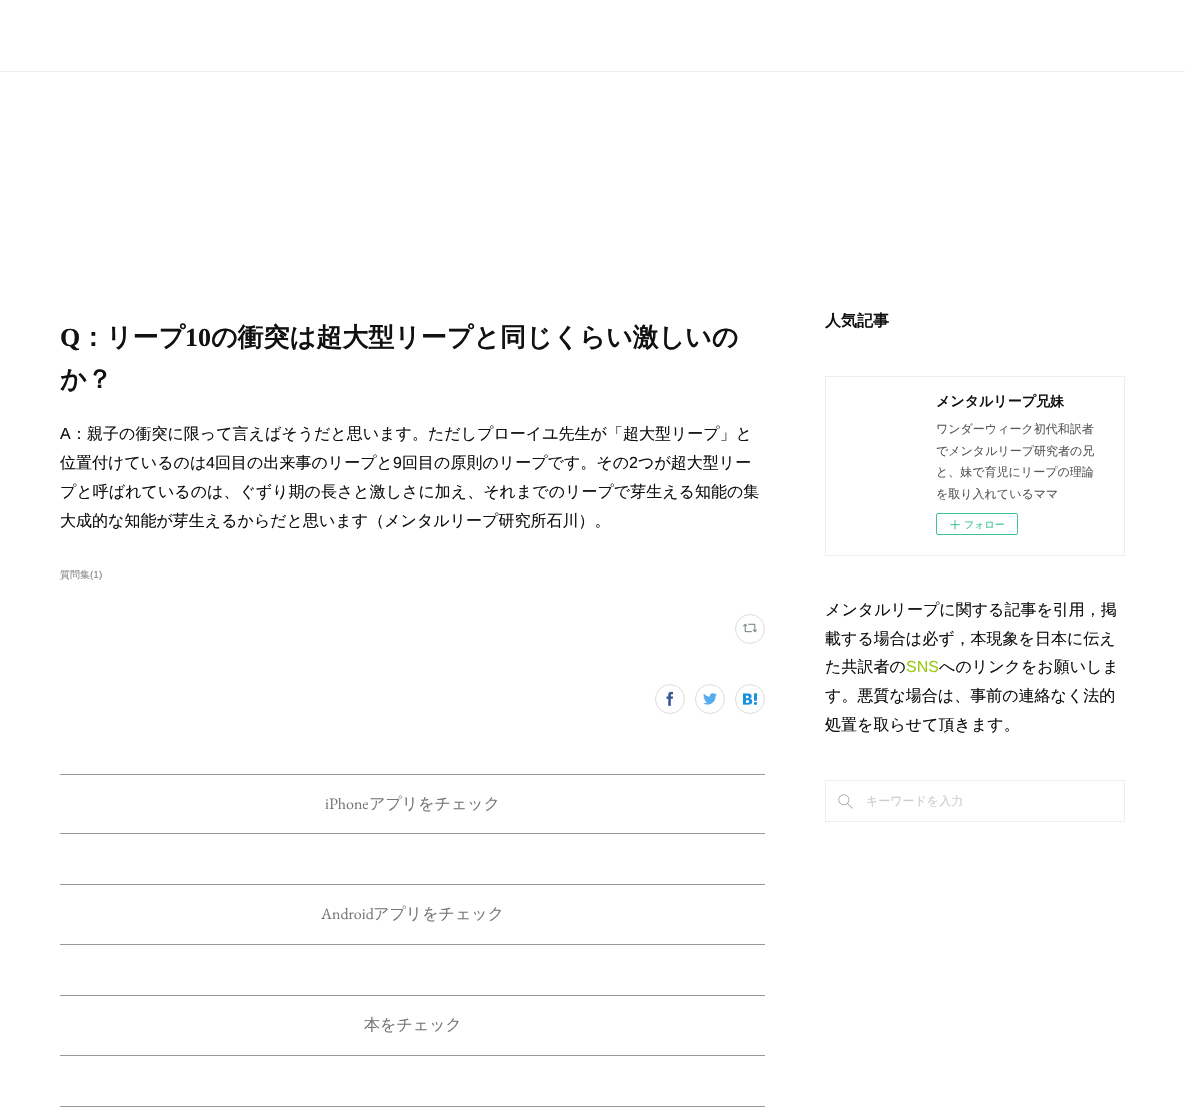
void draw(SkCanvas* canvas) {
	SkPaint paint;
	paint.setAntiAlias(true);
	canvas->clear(0xffffffff);
	paint.setColor(0xffeeeeee);
	canvas->drawRect(SkRect::MakeXYWH(0, 71, 1185, 1), paint);
	SkFont f1(fontMgr->matchFamilyStyle("Liberation Serif", SkFontStyle::Bold()), 26);
	f1.setSubpixel(true);
	paint.setColor(0xff111111);
	canvas->drawString("Q", 60, 346, f1, paint);
	SkFont f2(fontMgr->matchFamilyStyle("WenQuanYi Zen Hei", SkFontStyle::Bold()), 26);
	f2.setSubpixel(true);
	canvas->drawString("：リープ", 80, 346, f2, paint);
	canvas->drawString("10", 185, 346, f1, paint);
	canvas->drawString("の衝突は超大型リープと同じくらい激しいの", 211, 346, f2, paint);
	canvas->drawString("か？", 60, 388, f2, paint);
	SkFont f3(fontMgr->matchFamilyStyle("Liberation Sans", SkFontStyle::Normal()), 16);
	f3.setSubpixel(true);
	canvas->drawString("A", 60, 439, f3, paint);
	SkFont f4(fontMgr->matchFamilyStyle("WenQuanYi Zen Hei", SkFontStyle(500, SkFontStyle::kNormal_Width, SkFontStyle::kUpright_Slant)), 16);
	f4.setSubpixel(true);
	canvas->drawString("：親子の衝突に限って言えばそうだと思います。ただしプローイユ先生が「超大型リープ」と", 71, 439, f4, paint);
	canvas->drawString("位置付けているのは", 60, 468, f4, paint);
	canvas->drawString("4", 206, 468, f3, paint);
	canvas->drawString("回目の出来事のリープと", 215, 468, f4, paint);
	canvas->drawString("9", 393, 468, f3, paint);
	canvas->drawString("回目の原則のリープです。その", 402, 468, f4, paint);
	canvas->drawString("2", 629, 468, f3, paint);
	canvas->drawString("つが超大型リー", 638, 468, f4, paint);
	canvas->drawString("プと呼ばれているのは、ぐずり期の長さと激しさに加え、それまでのリープで芽生える知能の集", 60, 497, f4, paint);
	canvas->drawString("大成的な知能が芽生えるからだと思います（メンタルリープ研究所石川）。", 60, 526, f4, paint);
	SkFont f5(fontMgr->matchFamilyStyle("WenQuanYi Zen Hei", SkFontStyle(500, SkFontStyle::kNormal_Width, SkFontStyle::kUpright_Slant)), 10);
	f5.setSubpixel(true);
	paint.setColor(0xff888888);
	canvas->drawString("質問集", 60, 578, f5, paint);
	SkFont f6(fontMgr->matchFamilyStyle("Liberation Sans", SkFontStyle::Normal()), 10);
	f6.setSubpixel(true);
	canvas->drawString("(1)", 90, 578, f6, paint);
	paint.setStroke(true);
	paint.setStrokeWidth(1);
	paint.setColor(0xffdddddd);
	canvas->drawCircle(750, 629, 14.5, paint);
	canvas->drawImageRect(SkImages::DeferredFromEncodedData(SkData::MakeFromFileName("img1.png")), SkRect::MakeXYWH(743, 623, 14, 10), SkSamplingOptions());
	canvas->drawCircle(670, 699, 14.5, paint);
	canvas->drawImageRect(SkImages::DeferredFromEncodedData(SkData::MakeFromFileName("img2.png")), SkRect::MakeXYWH(666, 691, 7, 15), SkSamplingOptions());
	canvas->drawCircle(710, 699, 14.5, paint);
	canvas->drawImageRect(SkImages::DeferredFromEncodedData(SkData::MakeFromFileName("img3.png")), SkRect::MakeXYWH(703, 693, 14, 12), SkSamplingOptions());
	canvas->drawCircle(750, 699, 14.5, paint);
	canvas->drawImageRect(SkImages::DeferredFromEncodedData(SkData::MakeFromFileName("img4.png")), SkRect::MakeXYWH(743, 693, 14, 12), SkSamplingOptions());
	paint.setStroke(false);
	paint.setColor(0xff999999);
	canvas->drawRect(SkRect::MakeXYWH(60, 774, 705, 1), paint);
	canvas->drawRect(SkRect::MakeXYWH(60, 833, 705, 1), paint);
	SkFont f7(fontMgr->matchFamilyStyle("EB Garamond", SkFontStyle::Normal()), 16);
	f7.setSubpixel(true);
	paint.setColor(0xff777777);
	canvas->drawString("iPhone", 325, 809, f7, paint);
	canvas->drawString("アプリをチェック", 369, 809, f4, paint);
	paint.setColor(0xff999999);
	canvas->drawRect(SkRect::MakeXYWH(60, 884, 705, 1), paint);
	canvas->drawRect(SkRect::MakeXYWH(60, 944, 705, 1), paint);
	paint.setColor(0xff777777);
	canvas->drawString("Android", 321, 919, f7, paint);
	canvas->drawString("アプリをチェック", 373, 919, f4, paint);
	paint.setColor(0xff999999);
	canvas->drawRect(SkRect::MakeXYWH(60, 995, 705, 1), paint);
	canvas->drawRect(SkRect::MakeXYWH(60, 1055, 705, 1), paint);
	paint.setColor(0xff777777);
	canvas->drawString("本をチェック", 364, 1030, f4, paint);
	paint.setColor(0xff999999);
	canvas->drawRect(SkRect::MakeXYWH(60, 1106, 705, 1), paint);
	SkFont f8(fontMgr->matchFamilyStyle("WenQuanYi Zen Hei", SkFontStyle::Bold()), 16);
	f8.setSubpixel(true);
	paint.setColor(0xff111111);
	canvas->drawString("人気記事", 825, 326, f8, paint);
	paint.setStroke(true);
	paint.setColor(0xffeeeeee);
	canvas->drawRect(SkRect::MakeXYWH(825.5, 376.5, 299, 179), paint);
	SkFont f9(fontMgr->matchFamilyStyle("WenQuanYi Zen Hei", SkFontStyle::Bold()), 14);
	f9.setSubpixel(true);
	paint.setStroke(false);
	paint.setColor(0xff111111);
	canvas->drawString("メンタルリープ兄妹", 936, 406, f9, paint);
	SkFont f10(fontMgr->matchFamilyStyle("WenQuanYi Zen Hei", SkFontStyle(500, SkFontStyle::kNormal_Width, SkFontStyle::kUpright_Slant)), 12);
	f10.setSubpixel(true);
	paint.setColor(0xff585858);
	canvas->drawString("ワンダーウィーク初代和訳者", 936, 433, f10, paint);
	canvas->drawString("でメンタルリープ研究者の兄", 936, 455, f10, paint);
	canvas->drawString("と、妹で育児にリープの理論", 936, 476, f10, paint);
	canvas->drawString("を取り入れているママ", 936, 498, f10, paint);
	paint.setStroke(true);
	paint.setColor(0xff3dc49d);
	canvas->drawRoundRect(SkRect::MakeXYWH(936.5, 513.5, 81, 21), 1.5, 1.5, paint);
	canvas->drawImageRect(SkImages::DeferredFromEncodedData(SkData::MakeFromFileName("img5.png")), SkRect::MakeXYWH(950, 519, 10, 11), SkSamplingOptions());
	paint.setStroke(false);
	canvas->drawString("フォロー", 964, 528, f5, paint);
	paint.setColor(0xff111111);
	canvas->drawString("メンタルリープに関する記事を引用，掲", 825, 615, f4, paint);
	canvas->drawString("載する場合は必ず，本現象を日本に伝え", 825, 644, f4, paint);
	canvas->drawString("た共訳者の", 825, 672, f4, paint);
	paint.setColor(0xff9bc716);
	canvas->drawString("SNS", 906, 672, f3, paint);
	paint.setColor(0xff111111);
	canvas->drawString("へのリンクをお願いしま", 939, 672, f4, paint);
	canvas->drawString("す。悪質な場合は、事前の連絡なく法的", 825, 701, f4, paint);
	canvas->drawString("処置を取らせて頂きます。", 825, 730, f4, paint);
	paint.setStroke(true);
	paint.setColor(0xffeeeeee);
	canvas->drawRect(SkRect::MakeXYWH(825.5, 780.5, 299, 41), paint);
	canvas->drawImageRect(SkImages::DeferredFromEncodedData(SkData::MakeFromFileName("img6.png")), SkRect::MakeXYWH(838, 794, 15, 15), SkSamplingOptions());
	paint.setStroke(false);
	paint.setColor(0xffcccccc);
	canvas->drawString("キーワードを入力", 866, 805, f10, paint);
}
